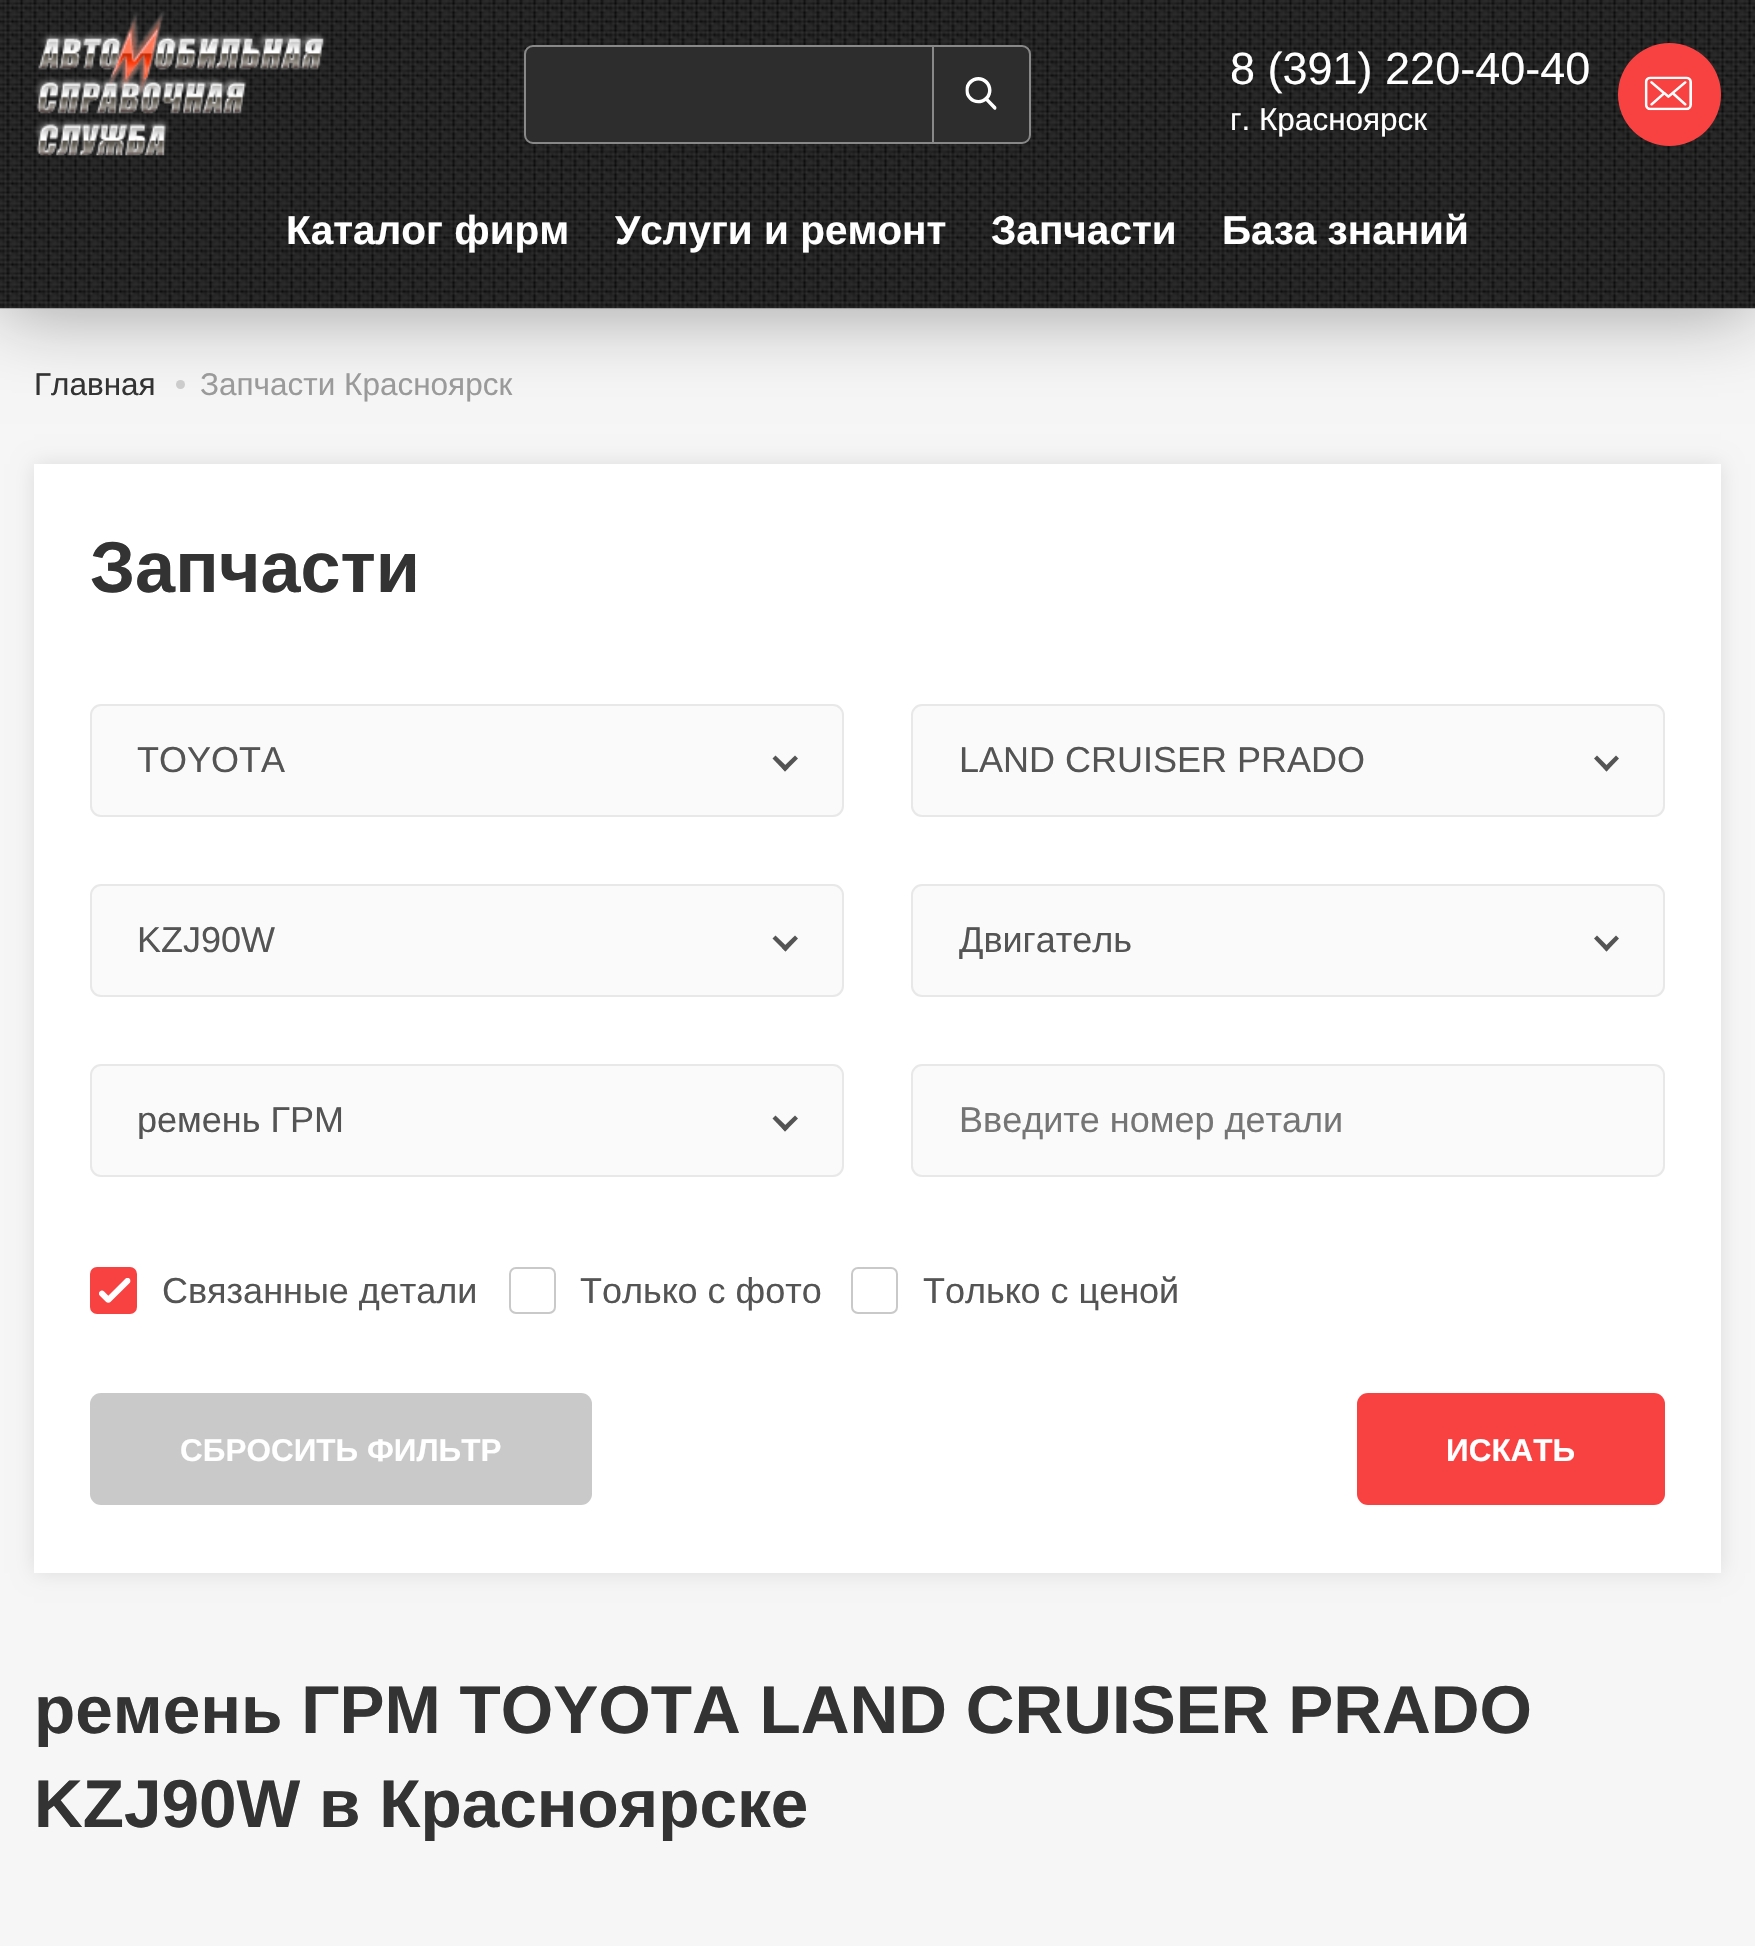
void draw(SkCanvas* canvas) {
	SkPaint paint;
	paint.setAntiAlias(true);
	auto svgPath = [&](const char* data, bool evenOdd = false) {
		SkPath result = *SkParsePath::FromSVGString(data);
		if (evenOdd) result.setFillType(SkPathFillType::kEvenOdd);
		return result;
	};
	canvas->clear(0xfff6f6f6);
	paint.setColor(0x57000000);
	paint.setMaskFilter(SkMaskFilter::MakeBlur(kNormal_SkBlurStyle, 37));
	canvas->drawRect(SkRect::MakeXYWH(0, 5, 1755, 308), paint);
	paint.setMaskFilter(nullptr);
	canvas->drawImageRect(SkImages::DeferredFromEncodedData(SkData::MakeFromFileName("img1.png")), SkRect::MakeXYWH(0, 0, 1755, 309), SkSamplingOptions());
	canvas->drawImageRect(SkImages::DeferredFromEncodedData(SkData::MakeFromFileName("img2.png")), SkRect::MakeXYWH(34, 11, 292, 145), SkSamplingOptions());
	paint.setColor(0xff2d2d2d);
	canvas->drawRoundRect(SkRect::MakeXYWH(525, 46, 505, 97), 8, 8, paint);
	paint.setStroke(true);
	paint.setStrokeWidth(2);
	paint.setColor(0xff888888);
	canvas->drawRoundRect(SkRect::MakeXYWH(525, 46, 505, 97), 8, 8, paint);
	paint.setStroke(false);
	canvas->drawRect(SkRect::MakeXYWH(932, 47, 2, 95), paint);
	canvas->drawImageRect(SkImages::DeferredFromEncodedData(SkData::MakeFromFileName("img3.png")), SkRect::MakeXYWH(965, 77, 32, 33), SkSamplingOptions());
	SkFont f1(fontMgr->matchFamilyStyle("Liberation Sans", SkFontStyle::Normal()), 45);
	f1.setSubpixel(true);
	paint.setColor(0xffffffff);
	canvas->drawString("8 (391) 220-40-40", 1230, 84, f1, paint);
	SkFont f2(fontMgr->matchFamilyStyle("Liberation Sans", SkFontStyle::Normal()), 31.5);
	f2.setSubpixel(true);
	canvas->drawString("г. Красноярск", 1230, 130, f2, paint);
	paint.setColor(0xfff84242);
	canvas->drawCircle(1669.5, 94.5, 51.5, paint);
	canvas->drawImageRect(SkImages::DeferredFromEncodedData(SkData::MakeFromFileName("img4.png")), SkRect::MakeXYWH(1644, 76, 48, 35), SkSamplingOptions());
	SkFont f3(fontMgr->matchFamilyStyle("Liberation Sans", SkFontStyle::Bold()), 40.5);
	f3.setSubpixel(true);
	paint.setColor(0xffffffff);
	canvas->drawString("Каталог фирм", 286, 244, f3, paint);
	canvas->drawString("Услуги и ремонт", 615, 244, f3, paint);
	canvas->drawString("Запчасти", 991, 244, f3, paint);
	canvas->drawString("База знаний", 1222, 244, f3, paint);
	paint.setColor(0xff333333);
	canvas->drawString("Главная", 34, 395, f2, paint);
	paint.setColor(0xffcccccc);
	canvas->drawCircle(180.5, 384.5, 4.5, paint);
	paint.setColor(0xff9a9a9a);
	canvas->drawString("Запчасти Красноярск", 200, 395, f2, paint);
	paint.setColor(0x1a030303);
	paint.setMaskFilter(SkMaskFilter::MakeBlur(kNormal_SkBlurStyle, 10));
	canvas->drawRect(SkRect::MakeXYWH(34, 464, 1687, 1109), paint);
	paint.setMaskFilter(nullptr);
	paint.setColor(0xffffffff);
	canvas->drawRect(SkRect::MakeXYWH(34, 464, 1687, 1109), paint);
	SkFont f4(fontMgr->matchFamilyStyle("Liberation Sans", SkFontStyle::Bold()), 72);
	f4.setSubpixel(true);
	paint.setColor(0xff333333);
	canvas->drawString("Запчасти", 90, 592, f4, paint);
	paint.setColor(0xfffafafa);
	canvas->drawRoundRect(SkRect::MakeXYWH(91, 705, 752, 111), 10, 10, paint);
	paint.setStroke(true);
	paint.setColor(0xffe8e8e8);
	canvas->drawRoundRect(SkRect::MakeXYWH(91, 705, 752, 111), 10, 10, paint);
	SkFont f5(fontMgr->matchFamilyStyle("Liberation Sans", SkFontStyle::Normal()), 36);
	f5.setSubpixel(true);
	paint.setStroke(false);
	paint.setColor(0xff545454);
	canvas->drawString("TOYOTA", 137, 772, f5, paint);
	canvas->drawPath(svgPath("M782 768L795 755.5L798 758.5L785 771.5Z"), paint);
	canvas->drawPath(svgPath("M772.5 758.5L775.5 755.5L788.5 768L785 771.5Z"), paint);
	paint.setColor(0xfffafafa);
	canvas->drawRoundRect(SkRect::MakeXYWH(912, 705, 752, 111), 10, 10, paint);
	paint.setStroke(true);
	paint.setColor(0xffe8e8e8);
	canvas->drawRoundRect(SkRect::MakeXYWH(912, 705, 752, 111), 10, 10, paint);
	paint.setStroke(false);
	paint.setColor(0xff545454);
	canvas->drawString("LAND CRUISER PRADO", 959, 772, f5, paint);
	canvas->drawPath(svgPath("M1603.5 768L1616 755.5L1619 758.5L1606.5 771.5Z"), paint);
	canvas->drawPath(svgPath("M1594 758.5L1597 755.5L1609.5 768L1606.5 771.5Z"), paint);
	paint.setColor(0xfffafafa);
	canvas->drawRoundRect(SkRect::MakeXYWH(91, 885, 752, 111), 10, 10, paint);
	paint.setStroke(true);
	paint.setColor(0xffe8e8e8);
	canvas->drawRoundRect(SkRect::MakeXYWH(91, 885, 752, 111), 10, 10, paint);
	paint.setStroke(false);
	paint.setColor(0xff545454);
	canvas->drawString("KZJ90W", 137, 952, f5, paint);
	canvas->drawPath(svgPath("M782 948L795 935.5L798 938.5L785.5 951.5Z"), paint);
	canvas->drawPath(svgPath("M772.5 938.5L775.5 935.5L788.5 948L785.5 951.5Z"), paint);
	paint.setColor(0xfffafafa);
	canvas->drawRoundRect(SkRect::MakeXYWH(912, 885, 752, 111), 10, 10, paint);
	paint.setStroke(true);
	paint.setColor(0xffe8e8e8);
	canvas->drawRoundRect(SkRect::MakeXYWH(912, 885, 752, 111), 10, 10, paint);
	canvas->save();
	canvas->clipRect(SkRect::MakeXYWH(959, 923, 659, 36));
	paint.setStroke(false);
	paint.setColor(0xff545454);
	canvas->drawString("Двигатель", 959, 952, f5, paint);
	canvas->restore();
	canvas->drawPath(svgPath("M1603.5 948L1616 935.5L1619 938.5L1606.5 951.5Z"), paint);
	canvas->drawPath(svgPath("M1594 938.5L1597 935.5L1609.5 948L1606.5 951.5Z"), paint);
	paint.setColor(0xfffafafa);
	canvas->drawRoundRect(SkRect::MakeXYWH(91, 1065, 752, 111), 10, 10, paint);
	paint.setStroke(true);
	paint.setColor(0xffe8e8e8);
	canvas->drawRoundRect(SkRect::MakeXYWH(91, 1065, 752, 111), 10, 10, paint);
	canvas->save();
	canvas->clipRect(SkRect::MakeXYWH(137, 1103, 660, 36));
	paint.setStroke(false);
	paint.setColor(0xff545454);
	canvas->drawString("ремень ГРМ", 137, 1132, f5, paint);
	canvas->restore();
	canvas->drawPath(svgPath("M782 1128L795 1115.5L798 1118.5L785 1131.5Z"), paint);
	canvas->drawPath(svgPath("M772.5 1118.5L775.5 1115.5L788.5 1128L785 1131.5Z"), paint);
	paint.setColor(0xfffafafa);
	canvas->drawRoundRect(SkRect::MakeXYWH(912, 1065, 752, 111), 10, 10, paint);
	paint.setStroke(true);
	paint.setColor(0xffe8e8e8);
	canvas->drawRoundRect(SkRect::MakeXYWH(912, 1065, 752, 111), 10, 10, paint);
	paint.setStroke(false);
	paint.setColor(0xff757575);
	canvas->drawString("Введите номер детали", 959, 1132, f5, paint);
	paint.setColor(0xfff84242);
	canvas->drawRoundRect(SkRect::MakeXYWH(91, 1268, 45, 45), 6, 6, paint);
	paint.setStroke(true);
	canvas->drawRoundRect(SkRect::MakeXYWH(91, 1268, 45, 45), 6, 6, paint);
	paint.setStroke(false);
	paint.setColor(0xff545454);
	canvas->drawString("Связанные детали", 162, 1303, f5, paint);
	canvas->drawImageRect(SkImages::DeferredFromEncodedData(SkData::MakeFromFileName("img5.png")), SkRect::MakeXYWH(99, 1278, 32, 25), SkSamplingOptions());
	paint.setStroke(true);
	paint.setColor(0xffc9c9c9);
	canvas->drawRoundRect(SkRect::MakeXYWH(510, 1268, 45, 45), 6, 6, paint);
	paint.setStroke(false);
	paint.setColor(0xff545454);
	canvas->drawString("Только с фото", 580, 1303, f5, paint);
	paint.setStroke(true);
	paint.setColor(0xffc9c9c9);
	canvas->drawRoundRect(SkRect::MakeXYWH(852, 1268, 45, 45), 6, 6, paint);
	paint.setStroke(false);
	paint.setColor(0xff545454);
	canvas->drawString("Только с ценой", 923, 1303, f5, paint);
	paint.setColor(0xffc9c9c9);
	canvas->drawRoundRect(SkRect::MakeXYWH(90, 1393, 502, 112), 11, 11, paint);
	SkFont f6(fontMgr->matchFamilyStyle("Liberation Sans", SkFontStyle::Bold()), 31.5);
	f6.setSubpixel(true);
	paint.setColor(0xffffffff);
	canvas->drawString("СБРОСИТЬ ФИЛЬТР", 180, 1461, f6, paint);
	paint.setColor(0xfff84242);
	canvas->drawRoundRect(SkRect::MakeXYWH(1357, 1393, 308, 112), 11, 11, paint);
	paint.setColor(0xffffffff);
	canvas->drawString("ИСКАТЬ", 1446, 1461, f6, paint);
	SkFont f7(fontMgr->matchFamilyStyle("Liberation Sans", SkFontStyle::Bold()), 67.5);
	f7.setSubpixel(true);
	paint.setColor(0xff333333);
	canvas->drawString("ремень ГРМ TOYOTA LAND CRUISER PRADO", 34, 1733, f7, paint);
	canvas->drawString("KZJ90W в Красноярске", 34, 1827, f7, paint);
}
